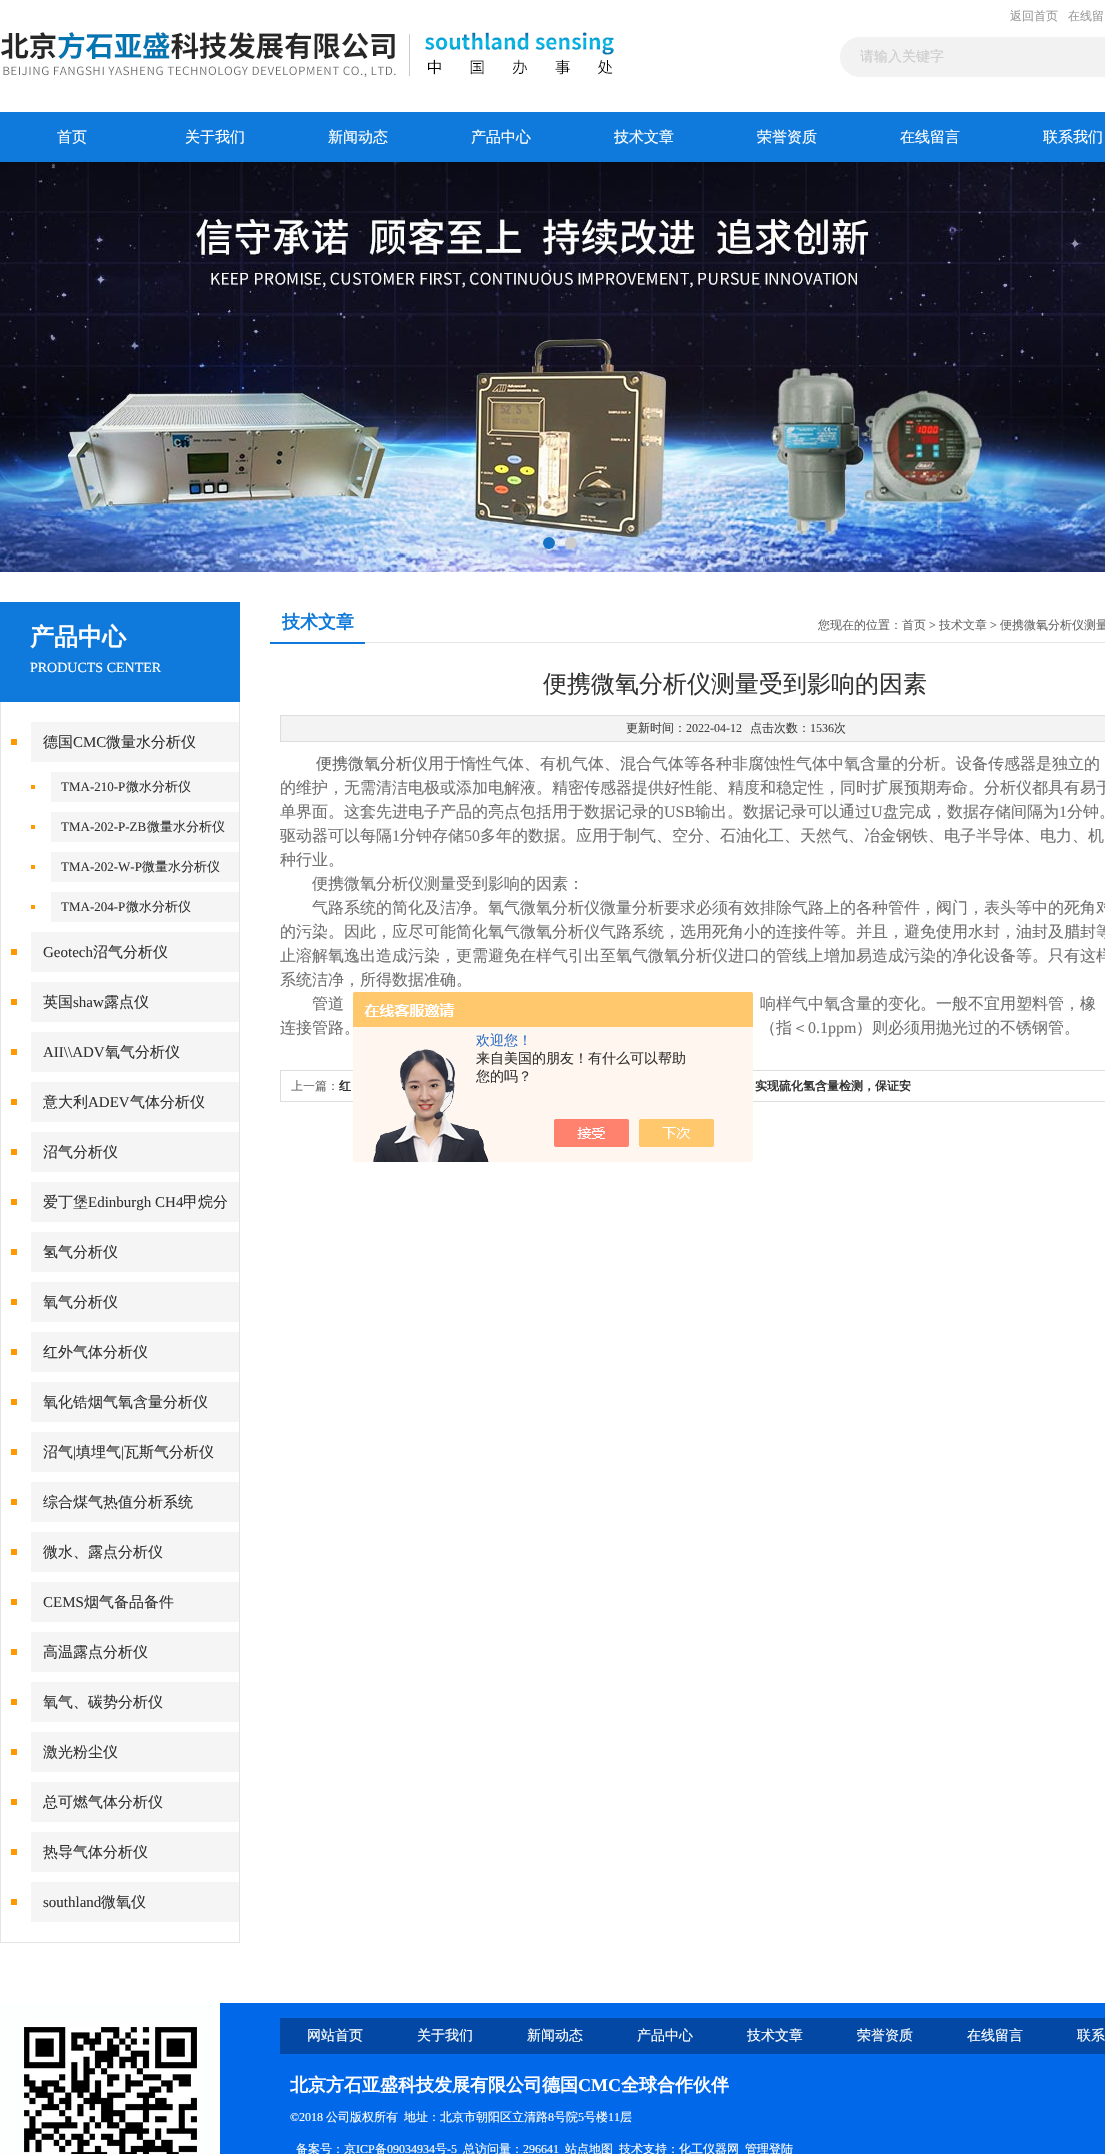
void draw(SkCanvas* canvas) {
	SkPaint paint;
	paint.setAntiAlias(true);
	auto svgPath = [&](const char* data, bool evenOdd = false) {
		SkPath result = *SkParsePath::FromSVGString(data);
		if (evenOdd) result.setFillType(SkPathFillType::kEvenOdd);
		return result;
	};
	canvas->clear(0xffffffff);
	canvas->drawImageRect(SkImages::DeferredFromEncodedData(SkData::MakeFromFileName("img1.png")), SkRect::MakeXYWH(1, 31, 614, 46), SkSamplingOptions());
	SkFont f1(fontMgr->matchFamilyStyle("WenQuanYi Zen Hei", SkFontStyle(500, SkFontStyle::kNormal_Width, SkFontStyle::kUpright_Slant)), 12);
	f1.setSubpixel(true);
	paint.setColor(0xff999999);
	canvas->drawString("返回首页", 1010, 20, f1, paint);
	canvas->drawString("在线留", 1068, 20, f1, paint);
	paint.setColor(0xfff2f2f2);
	canvas->drawPath(svgPath("M860 37H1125V77H860C849 77 840 68 840 57C840 46 849 37 860 37Z"), paint);
	SkFont f2(fontMgr->matchFamilyStyle("WenQuanYi Zen Hei", SkFontStyle(500, SkFontStyle::kNormal_Width, SkFontStyle::kUpright_Slant)), 14);
	f2.setSubpixel(true);
	paint.setColor(0xffcccccc);
	canvas->drawString("请输入关键字", 860, 61, f2, paint);
	paint.setColor(0xff0f7adb);
	canvas->drawRect(SkRect::MakeXYWH(0, 112, 1105, 50), paint);
	SkFont f3(fontMgr->matchFamilyStyle("WenQuanYi Zen Hei", SkFontStyle(500, SkFontStyle::kNormal_Width, SkFontStyle::kUpright_Slant)), 15);
	f3.setSubpixel(true);
	paint.setColor(0xffffffff);
	canvas->drawString("首页", 57, 142, f3, paint);
	canvas->drawString("关于我们", 185, 142, f3, paint);
	canvas->drawString("新闻动态", 328, 142, f3, paint);
	canvas->drawString("产品中心", 471, 142, f3, paint);
	canvas->drawString("技术文章", 614, 142, f3, paint);
	canvas->drawString("荣誉资质", 757, 142, f3, paint);
	canvas->drawString("在线留言", 900, 142, f3, paint);
	canvas->drawString("联系我们", 1043, 142, f3, paint);
	canvas->drawImageRect(SkImages::DeferredFromEncodedData(SkData::MakeFromFileName("img2.png")), SkRect::MakeXYWH(0, 162, 1105, 410), SkSamplingOptions());
	paint.setColor(0xff1773c6);
	canvas->drawCircle(549, 543, 6, paint);
	paint.setColor(0xffcccccc);
	canvas->drawCircle(571, 543, 6, paint);
	paint.setColor(0xff0f7adb);
	canvas->drawRect(SkRect::MakeXYWH(0, 602, 240, 100), paint);
	SkFont f4(fontMgr->matchFamilyStyle("WenQuanYi Zen Hei", SkFontStyle::Bold()), 24);
	f4.setSubpixel(true);
	paint.setColor(0xffffffff);
	canvas->drawString("产品中心", 30, 645, f4, paint);
	SkFont f5(fontMgr->matchFamilyStyle("Liberation Serif", SkFontStyle::Normal()), 14);
	f5.setSubpixel(true);
	canvas->drawString("PRODUCTS CENTER", 30, 672, f5, paint);
	paint.setColor(0xffe5e5e5);
	canvas->drawRect(SkRect::MakeXYWH(239, 702, 1, 1241), paint);
	canvas->drawRect(SkRect::MakeXYWH(0, 1942, 240, 1), paint);
	canvas->drawRect(SkRect::MakeXYWH(0, 702, 1, 1241), paint);
	paint.setColor(0xffff9900);
	canvas->drawRect(SkRect::MakeXYWH(11, 739, 6, 6), paint);
	paint.setColor(0xfff5f5f5);
	canvas->drawRect(SkRect::MakeXYWH(31, 722, 208, 40), paint);
	paint.setColor(0xff333333);
	canvas->drawString("德国", 43, 747, f3, paint);
	SkFont f6(fontMgr->matchFamilyStyle("Liberation Serif", SkFontStyle::Normal()), 15);
	f6.setSubpixel(true);
	canvas->drawString("CMC", 73, 747, f6, paint);
	canvas->drawString("微量水分析仪", 106, 747, f3, paint);
	paint.setColor(0xffff9900);
	canvas->drawRect(SkRect::MakeXYWH(31, 785, 4, 4), paint);
	paint.setColor(0xfff5f5f5);
	canvas->drawRect(SkRect::MakeXYWH(51, 772, 188, 30), paint);
	SkFont f7(fontMgr->matchFamilyStyle("Liberation Serif", SkFontStyle::Normal()), 13);
	f7.setSubpixel(true);
	paint.setColor(0xff333333);
	canvas->drawString("TMA-210-P", 61, 791, f7, paint);
	SkFont f8(fontMgr->matchFamilyStyle("WenQuanYi Zen Hei", SkFontStyle(500, SkFontStyle::kNormal_Width, SkFontStyle::kUpright_Slant)), 13);
	f8.setSubpixel(true);
	canvas->drawString("微水分析仪", 126, 791, f8, paint);
	paint.setColor(0xffff9900);
	canvas->drawRect(SkRect::MakeXYWH(31, 825, 4, 4), paint);
	paint.setColor(0xfff5f5f5);
	canvas->drawRect(SkRect::MakeXYWH(51, 812, 188, 30), paint);
	paint.setColor(0xff333333);
	canvas->drawString("TMA-202-P-ZB", 61, 831, f7, paint);
	canvas->drawString("微量水分析仪", 147, 831, f8, paint);
	paint.setColor(0xffff9900);
	canvas->drawRect(SkRect::MakeXYWH(31, 865, 4, 4), paint);
	paint.setColor(0xfff5f5f5);
	canvas->drawRect(SkRect::MakeXYWH(51, 852, 188, 30), paint);
	paint.setColor(0xff333333);
	canvas->drawString("TMA-202-W-P", 61, 871, f7, paint);
	canvas->drawString("微量水分析仪", 142, 871, f8, paint);
	paint.setColor(0xffff9900);
	canvas->drawRect(SkRect::MakeXYWH(31, 905, 4, 4), paint);
	paint.setColor(0xfff5f5f5);
	canvas->drawRect(SkRect::MakeXYWH(51, 892, 188, 30), paint);
	paint.setColor(0xff333333);
	canvas->drawString("TMA-204-P", 61, 911, f7, paint);
	canvas->drawString("微水分析仪", 126, 911, f8, paint);
	paint.setColor(0xffff9900);
	canvas->drawRect(SkRect::MakeXYWH(11, 949, 6, 6), paint);
	paint.setColor(0xfff5f5f5);
	canvas->drawRect(SkRect::MakeXYWH(31, 932, 208, 40), paint);
	paint.setColor(0xff333333);
	canvas->drawString("Geotech", 43, 957, f6, paint);
	canvas->drawString("沼气分析仪", 93, 957, f3, paint);
	paint.setColor(0xffff9900);
	canvas->drawRect(SkRect::MakeXYWH(11, 999, 6, 6), paint);
	paint.setColor(0xfff5f5f5);
	canvas->drawRect(SkRect::MakeXYWH(31, 982, 208, 40), paint);
	paint.setColor(0xff333333);
	canvas->drawString("英国", 43, 1007, f3, paint);
	canvas->drawString("shaw", 73, 1007, f6, paint);
	canvas->drawString("露点仪", 104, 1007, f3, paint);
	paint.setColor(0xffff9900);
	canvas->drawRect(SkRect::MakeXYWH(11, 1049, 6, 6), paint);
	paint.setColor(0xfff5f5f5);
	canvas->drawRect(SkRect::MakeXYWH(31, 1032, 208, 40), paint);
	paint.setColor(0xff333333);
	canvas->drawString("AII\\\\ADV", 43, 1057, f6, paint);
	canvas->drawString("氧气分析仪", 105, 1057, f3, paint);
	paint.setColor(0xffff9900);
	canvas->drawRect(SkRect::MakeXYWH(11, 1099, 6, 6), paint);
	paint.setColor(0xfff5f5f5);
	canvas->drawRect(SkRect::MakeXYWH(31, 1082, 208, 40), paint);
	paint.setColor(0xff333333);
	canvas->drawString("意大利", 43, 1107, f3, paint);
	canvas->drawString("ADEV", 88, 1107, f6, paint);
	canvas->drawString("气体分析仪", 130, 1107, f3, paint);
	paint.setColor(0xffff9900);
	canvas->drawRect(SkRect::MakeXYWH(11, 1149, 6, 6), paint);
	paint.setColor(0xfff5f5f5);
	canvas->drawRect(SkRect::MakeXYWH(31, 1132, 208, 40), paint);
	paint.setColor(0xff333333);
	canvas->drawString("沼气分析仪", 43, 1157, f3, paint);
	paint.setColor(0xffff9900);
	canvas->drawRect(SkRect::MakeXYWH(11, 1199, 6, 6), paint);
	paint.setColor(0xfff5f5f5);
	canvas->drawRect(SkRect::MakeXYWH(31, 1182, 208, 40), paint);
	paint.setColor(0xff333333);
	canvas->drawString("爱丁堡", 43, 1207, f3, paint);
	canvas->drawString("Edinburgh CH4", 88, 1207, f6, paint);
	canvas->drawString("甲烷分", 183, 1207, f3, paint);
	paint.setColor(0xffff9900);
	canvas->drawRect(SkRect::MakeXYWH(11, 1249, 6, 6), paint);
	paint.setColor(0xfff5f5f5);
	canvas->drawRect(SkRect::MakeXYWH(31, 1232, 208, 40), paint);
	paint.setColor(0xff333333);
	canvas->drawString("氢气分析仪", 43, 1257, f3, paint);
	paint.setColor(0xffff9900);
	canvas->drawRect(SkRect::MakeXYWH(11, 1299, 6, 6), paint);
	paint.setColor(0xfff5f5f5);
	canvas->drawRect(SkRect::MakeXYWH(31, 1282, 208, 40), paint);
	paint.setColor(0xff333333);
	canvas->drawString("氧气分析仪", 43, 1307, f3, paint);
	paint.setColor(0xffff9900);
	canvas->drawRect(SkRect::MakeXYWH(11, 1349, 6, 6), paint);
	paint.setColor(0xfff5f5f5);
	canvas->drawRect(SkRect::MakeXYWH(31, 1332, 208, 40), paint);
	paint.setColor(0xff333333);
	canvas->drawString("红外气体分析仪", 43, 1357, f3, paint);
	paint.setColor(0xffff9900);
	canvas->drawRect(SkRect::MakeXYWH(11, 1399, 6, 6), paint);
	paint.setColor(0xfff5f5f5);
	canvas->drawRect(SkRect::MakeXYWH(31, 1382, 208, 40), paint);
	paint.setColor(0xff333333);
	canvas->drawString("氧化锆烟气氧含量分析仪", 43, 1407, f3, paint);
	paint.setColor(0xffff9900);
	canvas->drawRect(SkRect::MakeXYWH(11, 1449, 6, 6), paint);
	paint.setColor(0xfff5f5f5);
	canvas->drawRect(SkRect::MakeXYWH(31, 1432, 208, 40), paint);
	paint.setColor(0xff333333);
	canvas->drawString("沼气", 43, 1457, f3, paint);
	canvas->drawString("|", 73, 1457, f6, paint);
	canvas->drawString("填埋气", 76, 1457, f3, paint);
	canvas->drawString("|", 121, 1457, f6, paint);
	canvas->drawString("瓦斯气分析仪", 124, 1457, f3, paint);
	paint.setColor(0xffff9900);
	canvas->drawRect(SkRect::MakeXYWH(11, 1499, 6, 6), paint);
	paint.setColor(0xfff5f5f5);
	canvas->drawRect(SkRect::MakeXYWH(31, 1482, 208, 40), paint);
	paint.setColor(0xff333333);
	canvas->drawString("综合煤气热值分析系统", 43, 1507, f3, paint);
	paint.setColor(0xffff9900);
	canvas->drawRect(SkRect::MakeXYWH(11, 1549, 6, 6), paint);
	paint.setColor(0xfff5f5f5);
	canvas->drawRect(SkRect::MakeXYWH(31, 1532, 208, 40), paint);
	paint.setColor(0xff333333);
	canvas->drawString("微水、露点分析仪", 43, 1557, f3, paint);
	paint.setColor(0xffff9900);
	canvas->drawRect(SkRect::MakeXYWH(11, 1599, 6, 6), paint);
	paint.setColor(0xfff5f5f5);
	canvas->drawRect(SkRect::MakeXYWH(31, 1582, 208, 40), paint);
	paint.setColor(0xff333333);
	canvas->drawString("CEMS", 43, 1607, f6, paint);
	canvas->drawString("烟气备品备件", 84, 1607, f3, paint);
	paint.setColor(0xffff9900);
	canvas->drawRect(SkRect::MakeXYWH(11, 1649, 6, 6), paint);
	paint.setColor(0xfff5f5f5);
	canvas->drawRect(SkRect::MakeXYWH(31, 1632, 208, 40), paint);
	paint.setColor(0xff333333);
	canvas->drawString("高温露点分析仪", 43, 1657, f3, paint);
	paint.setColor(0xffff9900);
	canvas->drawRect(SkRect::MakeXYWH(11, 1699, 6, 6), paint);
	paint.setColor(0xfff5f5f5);
	canvas->drawRect(SkRect::MakeXYWH(31, 1682, 208, 40), paint);
	paint.setColor(0xff333333);
	canvas->drawString("氧气、碳势分析仪", 43, 1707, f3, paint);
	paint.setColor(0xffff9900);
	canvas->drawRect(SkRect::MakeXYWH(11, 1749, 6, 6), paint);
	paint.setColor(0xfff5f5f5);
	canvas->drawRect(SkRect::MakeXYWH(31, 1732, 208, 40), paint);
	paint.setColor(0xff333333);
	canvas->drawString("激光粉尘仪", 43, 1757, f3, paint);
	paint.setColor(0xffff9900);
	canvas->drawRect(SkRect::MakeXYWH(11, 1799, 6, 6), paint);
	paint.setColor(0xfff5f5f5);
	canvas->drawRect(SkRect::MakeXYWH(31, 1782, 208, 40), paint);
	paint.setColor(0xff333333);
	canvas->drawString("总可燃气体分析仪", 43, 1807, f3, paint);
	paint.setColor(0xffff9900);
	canvas->drawRect(SkRect::MakeXYWH(11, 1849, 6, 6), paint);
	paint.setColor(0xfff5f5f5);
	canvas->drawRect(SkRect::MakeXYWH(31, 1832, 208, 40), paint);
	paint.setColor(0xff333333);
	canvas->drawString("热导气体分析仪", 43, 1857, f3, paint);
	paint.setColor(0xffff9900);
	canvas->drawRect(SkRect::MakeXYWH(11, 1899, 6, 6), paint);
	paint.setColor(0xfff5f5f5);
	canvas->drawRect(SkRect::MakeXYWH(31, 1882, 208, 40), paint);
	paint.setColor(0xff333333);
	canvas->drawString("southland", 43, 1907, f6, paint);
	canvas->drawString("微氧仪", 101, 1907, f3, paint);
	paint.setColor(0xffe5e5e5);
	canvas->drawRect(SkRect::MakeXYWH(365, 642, 740, 1), paint);
	paint.setColor(0xff0f7adb);
	canvas->drawRect(SkRect::MakeXYWH(270, 642, 95, 2), paint);
	SkFont f9(fontMgr->matchFamilyStyle("WenQuanYi Zen Hei", SkFontStyle::Bold()), 18);
	f9.setSubpixel(true);
	canvas->drawString("技术文章", 282, 628, f9, paint);
	paint.setColor(0xff666666);
	canvas->drawString("您现在的位置：首页", 818, 629, f1, paint);
	SkFont f10(fontMgr->matchFamilyStyle("Liberation Serif", SkFontStyle::Normal()), 12);
	f10.setSubpixel(true);
	canvas->drawString(">", 929, 629, f10, paint);
	canvas->drawString("技术文章", 939, 629, f1, paint);
	canvas->drawString(">", 990, 629, f10, paint);
	canvas->drawString("便携微氧分析仪测量", 1000, 629, f1, paint);
	SkFont f11(fontMgr->matchFamilyStyle("WenQuanYi Zen Hei", SkFontStyle(500, SkFontStyle::kNormal_Width, SkFontStyle::kUpright_Slant)), 24);
	f11.setSubpixel(true);
	paint.setColor(0xff333333);
	canvas->drawString("便携微氧分析仪测量受到影响的因素", 543, 692, f11, paint);
	paint.setColor(0xfff3f3f3);
	canvas->drawRect(SkRect::MakeXYWH(280.5, 715.5, 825, 26), paint);
	paint.setStroke(true);
	paint.setStrokeWidth(1);
	paint.setColor(0xffdddddd);
	canvas->drawRect(SkRect::MakeXYWH(280.5, 715.5, 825, 26), paint);
	paint.setStroke(false);
	paint.setColor(0xff444444);
	canvas->drawString("更新时间：", 626, 732, f1, paint);
	canvas->drawString("2022-04-12", 686, 732, f10, paint);
	canvas->drawString("点击次数：", 750, 732, f1, paint);
	canvas->drawString("1536", 810, 732, f10, paint);
	canvas->drawString("次", 834, 732, f1, paint);
	SkFont f12(fontMgr->matchFamilyStyle("WenQuanYi Zen Hei", SkFontStyle(500, SkFontStyle::kNormal_Width, SkFontStyle::kUpright_Slant)), 16);
	f12.setSubpixel(true);
	paint.setColor(0xff666666);
	canvas->drawString("便携微氧分析仪", 316, 769, f12, paint);
	paint.setColor(0xff727171);
	canvas->drawString("用于惰性气体、有机气体、混合气体等各种非腐蚀性气体中氧含量的分析。设备传感器是独立的", 428, 769, f12, paint);
	canvas->drawString("的维护，无需清洁电极或添加电解液。精密传感器提供好性能、精度和稳定性，同时扩展预期寿命。分析仪都具有易于", 280, 793, f12, paint);
	canvas->drawString("单界面。这套先进电子产品的亮点包括用于数据记录的", 280, 817, f12, paint);
	SkFont f13(fontMgr->matchFamilyStyle("Liberation Serif", SkFontStyle::Normal()), 16);
	f13.setSubpixel(true);
	canvas->drawString("USB", 664, 817, f13, paint);
	canvas->drawString("输出。数据记录可以通过", 695, 817, f12, paint);
	canvas->drawString("U", 871, 817, f13, paint);
	canvas->drawString("盘完成，数据存储间隔为", 883, 817, f12, paint);
	canvas->drawString("1", 1059, 817, f13, paint);
	canvas->drawString("分钟。", 1067, 817, f12, paint);
	canvas->drawString("驱动器可以每隔", 280, 841, f12, paint);
	canvas->drawString("1", 392, 841, f13, paint);
	canvas->drawString("分钟存储", 400, 841, f12, paint);
	canvas->drawString("50", 464, 841, f13, paint);
	canvas->drawString("多年的数据。应用于制气、空分、石油化工、天然气、冶金钢铁、电子半导体、电力、机", 480, 841, f12, paint);
	canvas->drawString("种行业。", 280, 865, f12, paint);
	canvas->drawString("便携微氧分析仪测量受到影响的因素：", 312, 889, f12, paint);
	canvas->drawString("气路系统的简化及洁净。氧气微氧分析仪微量分析要求必须有效排除气路上的各种管件，阀门，表头等中的死角对", 312, 913, f12, paint);
	canvas->drawString("的污染。因此，应尽可能简化氧气微氧分析仪气路系统，选用死角小的连接件等。并且，避免使用水封，油封及腊封等", 280, 937, f12, paint);
	canvas->drawString("止溶解氧逸出造成污染，更需避免在样气引出至氧气微氧分析仪进口的管线上增加易造成污染的净化设备等。只有这样", 280, 961, f12, paint);
	canvas->drawString("系统洁净，所得数据准确。", 280, 985, f12, paint);
	canvas->drawString("管道", 312, 1009, f12, paint);
	canvas->drawString("响样气中氧含量的变化。一般不宜用塑料管，橡", 760, 1009, f12, paint);
	canvas->drawString("连接管路。", 280, 1033, f12, paint);
	canvas->drawString("（指＜", 760, 1033, f12, paint);
	canvas->drawString("0.1ppm", 808, 1033, f13, paint);
	canvas->drawString("）则必须用抛光过的不锈钢管。", 856, 1033, f12, paint);
	paint.setStroke(true);
	paint.setColor(0xffdddddd);
	canvas->drawRect(SkRect::MakeXYWH(280.5, 1070.5, 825, 31), paint);
	paint.setStroke(false);
	paint.setColor(0xff666666);
	canvas->drawString("上一篇：", 291, 1090, f1, paint);
	SkFont f14(fontMgr->matchFamilyStyle("WenQuanYi Zen Hei", SkFontStyle::Bold()), 12);
	f14.setSubpixel(true);
	paint.setColor(0xff333333);
	canvas->drawString("红", 339, 1090, f14, paint);
	canvas->drawString("实现硫化氢含量检测，保证安", 755, 1090, f14, paint);
	canvas->drawImageRect(SkImages::DeferredFromEncodedData(SkData::MakeFromFileName("img3.png")), SkRect::MakeXYWH(353, 992, 400, 170), SkSamplingOptions());
	paint.setColor(0xff2e6ec6);
	canvas->drawString("欢迎您！", 476, 1045, f2, paint);
	paint.setColor(0xff333333);
	canvas->drawString("来自美国的朋友！有什么可以帮助", 476, 1063, f2, paint);
	canvas->drawString("您的吗？", 476, 1081, f2, paint);
	paint.setColor(0xff0168e9);
	canvas->drawRect(SkRect::MakeXYWH(220, 2003, 885, 151), paint);
	canvas->drawImageRect(SkImages::DeferredFromEncodedData(SkData::MakeFromFileName("img4.png")), SkRect::MakeXYWH(0, 2003, 220, 151), SkSamplingOptions());
	paint.setColor(0xff0248a4);
	canvas->drawRect(SkRect::MakeXYWH(280, 2018, 825, 36), paint);
	paint.setColor(0xffffffff);
	canvas->drawString("网站首页", 307, 2040, f2, paint);
	canvas->drawString("关于我们", 417, 2040, f2, paint);
	canvas->drawString("新闻动态", 527, 2040, f2, paint);
	canvas->drawString("产品中心", 637, 2040, f2, paint);
	canvas->drawString("技术文章", 747, 2040, f2, paint);
	canvas->drawString("荣誉资质", 857, 2040, f2, paint);
	canvas->drawString("在线留言", 967, 2040, f2, paint);
	canvas->drawString("联系", 1077, 2040, f2, paint);
	canvas->drawString("北京方石亚盛科技发展有限公司德国", 290, 2091, f9, paint);
	SkFont f15(fontMgr->matchFamilyStyle("Liberation Serif", SkFontStyle::Bold()), 18);
	f15.setSubpixel(true);
	canvas->drawString("CMC", 578, 2091, f15, paint);
	canvas->drawString("全球合作伙伴", 621, 2091, f9, paint);
	canvas->drawString("©2018", 290, 2121, f10, paint);
	canvas->drawString("公司版权所有", 326, 2121, f1, paint);
	canvas->drawString("地址：北京市朝阳区立清路", 404, 2121, f1, paint);
	canvas->drawString("8", 548, 2121, f10, paint);
	canvas->drawString("号院", 554, 2121, f1, paint);
	canvas->drawString("5", 578, 2121, f10, paint);
	canvas->drawString("号楼", 584, 2121, f1, paint);
	canvas->drawString("11", 608, 2121, f10, paint);
	canvas->drawString("层", 620, 2121, f1, paint);
	canvas->drawString("备案号：京", 296, 2153, f1, paint);
	canvas->drawString("ICP", 356, 2153, f10, paint);
	canvas->drawString("备", 375, 2153, f1, paint);
	canvas->drawString("09034934", 387, 2153, f10, paint);
	canvas->drawString("号", 435, 2153, f1, paint);
	canvas->drawString("-5", 447, 2153, f10, paint);
	canvas->drawString("总访问量：", 463, 2153, f1, paint);
	canvas->drawString("296641", 523, 2153, f10, paint);
	canvas->drawString("站点地图", 565, 2153, f1, paint);
	canvas->drawString("技术支持：化工仪器网", 619, 2153, f1, paint);
	canvas->drawString("管理登陆", 745, 2153, f1, paint);
}
